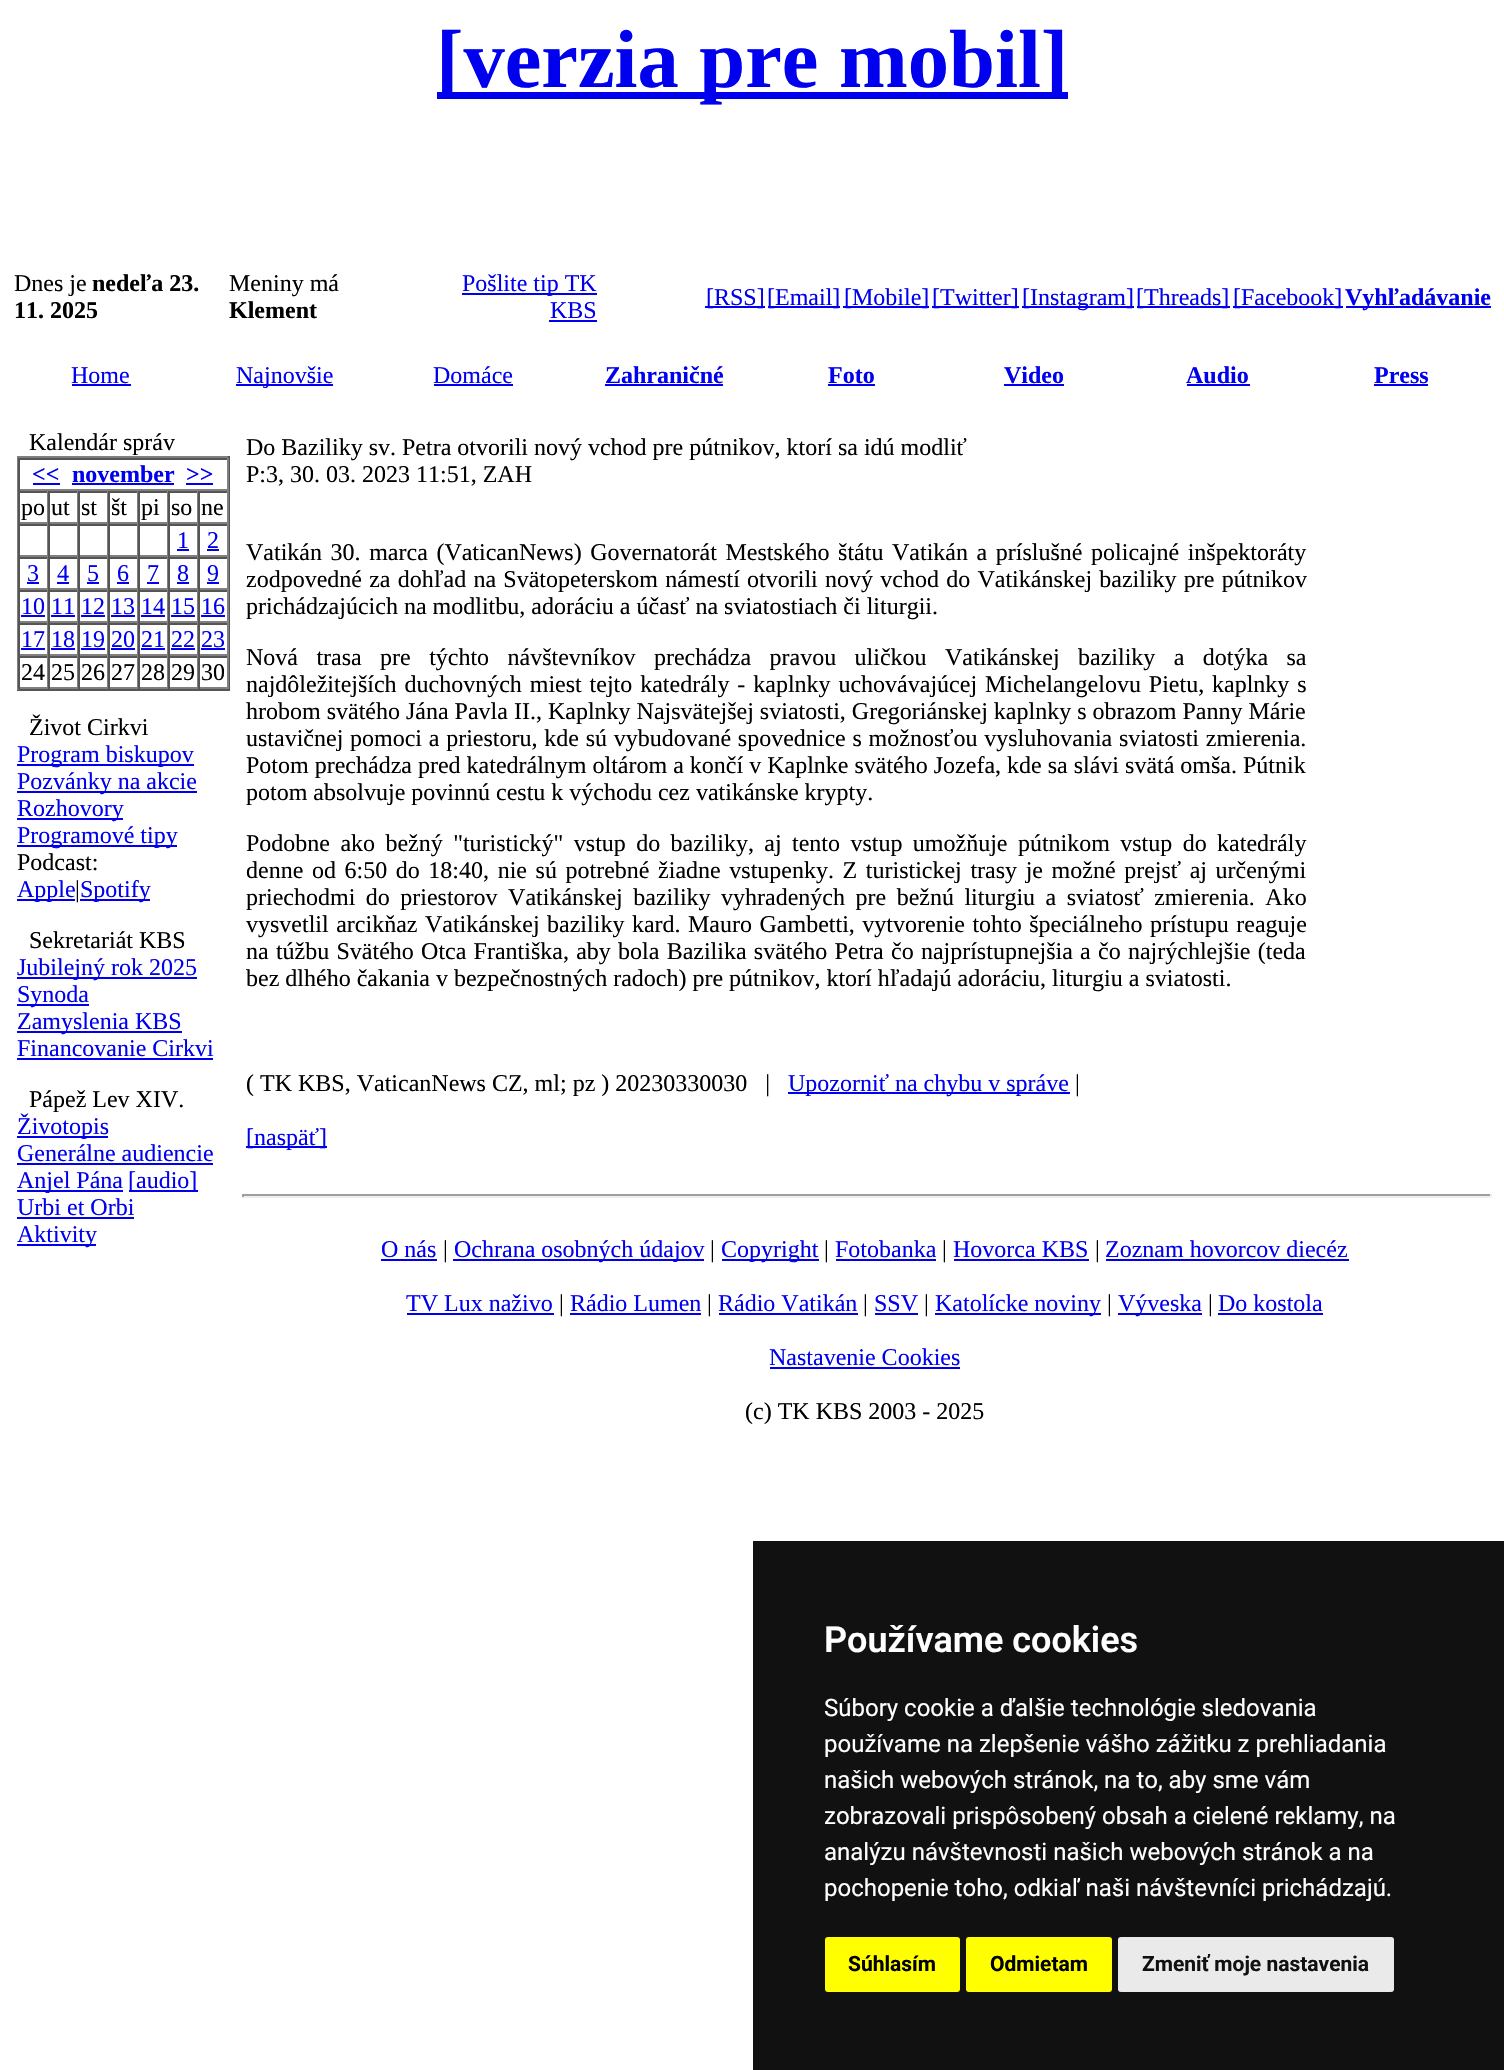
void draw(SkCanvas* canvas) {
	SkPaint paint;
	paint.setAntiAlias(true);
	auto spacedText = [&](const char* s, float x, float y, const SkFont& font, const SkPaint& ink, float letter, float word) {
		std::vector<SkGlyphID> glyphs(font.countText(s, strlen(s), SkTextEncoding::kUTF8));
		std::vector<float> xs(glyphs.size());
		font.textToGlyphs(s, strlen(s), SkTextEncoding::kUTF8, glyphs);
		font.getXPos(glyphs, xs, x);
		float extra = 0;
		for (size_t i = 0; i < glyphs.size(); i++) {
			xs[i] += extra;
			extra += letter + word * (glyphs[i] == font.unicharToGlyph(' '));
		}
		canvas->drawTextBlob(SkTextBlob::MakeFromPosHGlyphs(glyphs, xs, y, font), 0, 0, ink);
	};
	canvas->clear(0xffffffff);
	paint.setColor(0xff0000ee);
	canvas->drawRect(SkRect::MakeXYWH(437, 92, 631, 7), paint);
	SkFont f1(fontMgr->matchFamilyStyle("Liberation Serif", SkFontStyle::Bold()), 82.5);
	f1.setSubpixel(true);
	canvas->drawString("[verzia pre mobil]", 436, 87, f1, paint);
	SkFont f2(fontMgr->matchFamilyStyle("Liberation Serif", SkFontStyle::Normal()), 24);
	f2.setSubpixel(true);
	paint.setColor(0xff000000);
	canvas->drawString("Dnes je", 14, 291, f2, paint);
	SkFont f3(fontMgr->matchFamilyStyle("Liberation Serif", SkFontStyle::Bold()), 24);
	f3.setSubpixel(true);
	canvas->drawString("nedeľa 23.", 92, 291, f3, paint);
	canvas->drawString("11. 2025", 14, 318, f3, paint);
	canvas->drawString("Meniny má", 229, 291, f2, paint);
	canvas->drawString("Klement", 229, 318, f3, paint);
	paint.setColor(0xff0000ee);
	canvas->drawRect(SkRect::MakeXYWH(462, 293, 135, 2), paint);
	canvas->drawString("Pošlite tip TK", 462, 291, f2, paint);
	canvas->drawString("KBS", 550, 318, f2, paint);
	canvas->drawRect(SkRect::MakeXYWH(549, 320, 48, 2), paint);
	canvas->drawRect(SkRect::MakeXYWH(705, 306, 60, 2), paint);
	canvas->drawString("[RSS]", 706, 305, f2, paint);
	canvas->drawRect(SkRect::MakeXYWH(768, 306, 72, 2), paint);
	canvas->drawString("[Email]", 767, 305, f2, paint);
	canvas->drawRect(SkRect::MakeXYWH(843, 306, 86, 2), paint);
	canvas->drawString("[Mobile]", 844, 305, f2, paint);
	canvas->drawRect(SkRect::MakeXYWH(932, 306, 87, 2), paint);
	canvas->drawString("[Twitter]", 932, 305, f2, paint);
	canvas->drawRect(SkRect::MakeXYWH(1022, 306, 112, 2), paint);
	canvas->drawString("[Instagram]", 1022, 305, f2, paint);
	canvas->drawRect(SkRect::MakeXYWH(1137, 306, 93, 2), paint);
	canvas->drawString("[Threads]", 1136, 305, f2, paint);
	canvas->drawRect(SkRect::MakeXYWH(1233, 306, 110, 2), paint);
	canvas->drawString("[Facebook]", 1233, 305, f2, paint);
	canvas->drawRect(SkRect::MakeXYWH(1346, 306, 145, 2), paint);
	canvas->drawString("Vyhľadávanie", 1345, 305, f3, paint);
	canvas->drawString("Home", 71, 383, f2, paint);
	canvas->drawRect(SkRect::MakeXYWH(72, 384, 59, 2), paint);
	canvas->drawRect(SkRect::MakeXYWH(236, 384, 97, 2), paint);
	canvas->drawString("Najnovšie", 236, 383, f2, paint);
	canvas->drawString("Domáce", 433, 383, f2, paint);
	canvas->drawRect(SkRect::MakeXYWH(434, 384, 79, 2), paint);
	canvas->drawString("Zahraničné", 605, 383, f3, paint);
	canvas->drawRect(SkRect::MakeXYWH(605, 384, 118, 2), paint);
	canvas->drawString("Foto", 828, 383, f3, paint);
	canvas->drawRect(SkRect::MakeXYWH(828, 384, 47, 2), paint);
	canvas->drawString("Video", 1004, 383, f3, paint);
	canvas->drawRect(SkRect::MakeXYWH(1004, 384, 60, 2), paint);
	canvas->drawString("Audio", 1186, 383, f3, paint);
	canvas->drawRect(SkRect::MakeXYWH(1187, 384, 63, 2), paint);
	canvas->drawString("Press", 1374, 383, f3, paint);
	canvas->drawRect(SkRect::MakeXYWH(1374, 384, 54, 2), paint);
	paint.setColor(0xff000000);
	canvas->drawString("Kalendár správ", 29, 450, f2, paint);
	paint.setColor(0xff808080);
	canvas->drawRect(SkRect::MakeXYWH(17, 456, 213, 2), paint);
	paint.setColor(0xff555555);
	canvas->drawRect(SkRect::MakeXYWH(228, 456, 2, 234), paint);
	canvas->drawRect(SkRect::MakeXYWH(17, 689, 213, 2), paint);
	paint.setColor(0xff808080);
	canvas->drawRect(SkRect::MakeXYWH(17, 456, 2, 234), paint);
	paint.setColor(0xff555555);
	canvas->drawRect(SkRect::MakeXYWH(18, 458, 210, 2), paint);
	paint.setColor(0xff808080);
	canvas->drawRect(SkRect::MakeXYWH(227, 458, 2, 33), paint);
	canvas->drawRect(SkRect::MakeXYWH(18, 489, 210, 2), paint);
	paint.setColor(0xff555555);
	canvas->drawRect(SkRect::MakeXYWH(18, 458, 2, 33), paint);
	paint.setColor(0xff0000ee);
	canvas->drawString("<<", 32, 482, f3, paint);
	canvas->drawRect(SkRect::MakeXYWH(33, 483, 27, 2), paint);
	canvas->drawString("november", 72, 482, f3, paint);
	canvas->drawRect(SkRect::MakeXYWH(72, 483, 102, 2), paint);
	canvas->drawString(">>", 186, 482, f3, paint);
	canvas->drawRect(SkRect::MakeXYWH(186, 483, 27, 2), paint);
	paint.setColor(0xff555555);
	canvas->drawRect(SkRect::MakeXYWH(18, 491, 210, 2), paint);
	paint.setColor(0xff808080);
	canvas->drawRect(SkRect::MakeXYWH(77, 491, 1, 33), paint);
	canvas->drawRect(SkRect::MakeXYWH(48, 522, 30, 2), paint);
	paint.setColor(0xff555555);
	canvas->drawRect(SkRect::MakeXYWH(48, 491, 2, 33), paint);
	paint.setColor(0xff808080);
	canvas->drawRect(SkRect::MakeXYWH(137, 491, 1, 33), paint);
	canvas->drawRect(SkRect::MakeXYWH(108, 522, 30, 2), paint);
	paint.setColor(0xff555555);
	canvas->drawRect(SkRect::MakeXYWH(108, 491, 2, 33), paint);
	paint.setColor(0xff000000);
	canvas->drawString("št", 111, 515, f2, paint);
	paint.setColor(0xff808080);
	canvas->drawRect(SkRect::MakeXYWH(167, 491, 1, 33), paint);
	canvas->drawRect(SkRect::MakeXYWH(138, 522, 30, 2), paint);
	paint.setColor(0xff555555);
	canvas->drawRect(SkRect::MakeXYWH(138, 491, 2, 33), paint);
	paint.setColor(0xff000000);
	canvas->drawString("pi", 141, 515, f2, paint);
	paint.setColor(0xff808080);
	canvas->drawRect(SkRect::MakeXYWH(47, 491, 1, 33), paint);
	canvas->drawRect(SkRect::MakeXYWH(18, 522, 30, 2), paint);
	paint.setColor(0xff555555);
	canvas->drawRect(SkRect::MakeXYWH(18, 491, 2, 33), paint);
	paint.setColor(0xff000000);
	canvas->drawString("po ut", 21, 515, f2, paint);
	paint.setColor(0xff808080);
	canvas->drawRect(SkRect::MakeXYWH(107, 491, 1, 33), paint);
	canvas->drawRect(SkRect::MakeXYWH(78, 522, 30, 2), paint);
	paint.setColor(0xff555555);
	canvas->drawRect(SkRect::MakeXYWH(78, 491, 2, 33), paint);
	paint.setColor(0xff000000);
	canvas->drawString("st", 81, 515, f2, paint);
	paint.setColor(0xff808080);
	canvas->drawRect(SkRect::MakeXYWH(197, 491, 1, 33), paint);
	canvas->drawRect(SkRect::MakeXYWH(168, 522, 30, 2), paint);
	paint.setColor(0xff555555);
	canvas->drawRect(SkRect::MakeXYWH(168, 491, 2, 33), paint);
	paint.setColor(0xff000000);
	canvas->drawString("so", 171, 515, f2, paint);
	paint.setColor(0xff808080);
	canvas->drawRect(SkRect::MakeXYWH(227, 491, 2, 33), paint);
	canvas->drawRect(SkRect::MakeXYWH(198, 522, 30, 2), paint);
	paint.setColor(0xff555555);
	canvas->drawRect(SkRect::MakeXYWH(198, 491, 2, 33), paint);
	paint.setColor(0xff000000);
	canvas->drawString("ne", 201, 515, f2, paint);
	paint.setColor(0xff555555);
	canvas->drawRect(SkRect::MakeXYWH(18, 524, 210, 2), paint);
	paint.setColor(0xff808080);
	canvas->drawRect(SkRect::MakeXYWH(47, 524, 1, 33), paint);
	canvas->drawRect(SkRect::MakeXYWH(18, 555, 30, 2), paint);
	paint.setColor(0xff555555);
	canvas->drawRect(SkRect::MakeXYWH(18, 524, 2, 33), paint);
	paint.setColor(0xff808080);
	canvas->drawRect(SkRect::MakeXYWH(77, 524, 1, 33), paint);
	canvas->drawRect(SkRect::MakeXYWH(48, 555, 30, 2), paint);
	paint.setColor(0xff555555);
	canvas->drawRect(SkRect::MakeXYWH(48, 524, 2, 33), paint);
	paint.setColor(0xff808080);
	canvas->drawRect(SkRect::MakeXYWH(107, 524, 1, 33), paint);
	canvas->drawRect(SkRect::MakeXYWH(78, 555, 30, 2), paint);
	paint.setColor(0xff555555);
	canvas->drawRect(SkRect::MakeXYWH(78, 524, 2, 33), paint);
	paint.setColor(0xff808080);
	canvas->drawRect(SkRect::MakeXYWH(137, 524, 1, 33), paint);
	canvas->drawRect(SkRect::MakeXYWH(108, 555, 30, 2), paint);
	paint.setColor(0xff555555);
	canvas->drawRect(SkRect::MakeXYWH(108, 524, 2, 33), paint);
	paint.setColor(0xff808080);
	canvas->drawRect(SkRect::MakeXYWH(167, 524, 1, 33), paint);
	canvas->drawRect(SkRect::MakeXYWH(138, 555, 30, 2), paint);
	paint.setColor(0xff555555);
	canvas->drawRect(SkRect::MakeXYWH(138, 524, 2, 33), paint);
	paint.setColor(0xff808080);
	canvas->drawRect(SkRect::MakeXYWH(197, 524, 1, 33), paint);
	canvas->drawRect(SkRect::MakeXYWH(168, 555, 30, 2), paint);
	paint.setColor(0xff555555);
	canvas->drawRect(SkRect::MakeXYWH(168, 524, 2, 33), paint);
	paint.setColor(0xff0000ee);
	canvas->drawString("1", 177, 548, f2, paint);
	canvas->drawRect(SkRect::MakeXYWH(177, 549, 12, 2), paint);
	paint.setColor(0xff808080);
	canvas->drawRect(SkRect::MakeXYWH(227, 524, 2, 33), paint);
	canvas->drawRect(SkRect::MakeXYWH(198, 555, 30, 2), paint);
	paint.setColor(0xff555555);
	canvas->drawRect(SkRect::MakeXYWH(198, 524, 2, 33), paint);
	paint.setColor(0xff0000ee);
	canvas->drawString("2", 207, 548, f2, paint);
	canvas->drawRect(SkRect::MakeXYWH(207, 549, 12, 2), paint);
	paint.setColor(0xff555555);
	canvas->drawRect(SkRect::MakeXYWH(18, 557, 210, 2), paint);
	paint.setColor(0xff808080);
	canvas->drawRect(SkRect::MakeXYWH(47, 557, 1, 33), paint);
	canvas->drawRect(SkRect::MakeXYWH(18, 588, 30, 2), paint);
	paint.setColor(0xff555555);
	canvas->drawRect(SkRect::MakeXYWH(18, 557, 2, 33), paint);
	paint.setColor(0xff0000ee);
	canvas->drawString("3", 27, 581, f2, paint);
	canvas->drawRect(SkRect::MakeXYWH(27, 582, 12, 2), paint);
	paint.setColor(0xff808080);
	canvas->drawRect(SkRect::MakeXYWH(77, 557, 1, 33), paint);
	canvas->drawRect(SkRect::MakeXYWH(48, 588, 30, 2), paint);
	paint.setColor(0xff555555);
	canvas->drawRect(SkRect::MakeXYWH(48, 557, 2, 33), paint);
	paint.setColor(0xff0000ee);
	canvas->drawString("4", 57, 581, f2, paint);
	canvas->drawRect(SkRect::MakeXYWH(57, 582, 12, 2), paint);
	paint.setColor(0xff808080);
	canvas->drawRect(SkRect::MakeXYWH(107, 557, 1, 33), paint);
	canvas->drawRect(SkRect::MakeXYWH(78, 588, 30, 2), paint);
	paint.setColor(0xff555555);
	canvas->drawRect(SkRect::MakeXYWH(78, 557, 2, 33), paint);
	paint.setColor(0xff0000ee);
	canvas->drawString("5", 87, 581, f2, paint);
	canvas->drawRect(SkRect::MakeXYWH(87, 582, 12, 2), paint);
	paint.setColor(0xff808080);
	canvas->drawRect(SkRect::MakeXYWH(137, 557, 1, 33), paint);
	canvas->drawRect(SkRect::MakeXYWH(108, 588, 30, 2), paint);
	paint.setColor(0xff555555);
	canvas->drawRect(SkRect::MakeXYWH(108, 557, 2, 33), paint);
	paint.setColor(0xff0000ee);
	canvas->drawString("6", 117, 581, f2, paint);
	canvas->drawRect(SkRect::MakeXYWH(117, 582, 12, 2), paint);
	paint.setColor(0xff808080);
	canvas->drawRect(SkRect::MakeXYWH(167, 557, 1, 33), paint);
	canvas->drawRect(SkRect::MakeXYWH(138, 588, 30, 2), paint);
	paint.setColor(0xff555555);
	canvas->drawRect(SkRect::MakeXYWH(138, 557, 2, 33), paint);
	paint.setColor(0xff0000ee);
	canvas->drawString("7", 147, 581, f2, paint);
	canvas->drawRect(SkRect::MakeXYWH(147, 582, 12, 2), paint);
	paint.setColor(0xff808080);
	canvas->drawRect(SkRect::MakeXYWH(197, 557, 1, 33), paint);
	canvas->drawRect(SkRect::MakeXYWH(168, 588, 30, 2), paint);
	paint.setColor(0xff555555);
	canvas->drawRect(SkRect::MakeXYWH(168, 557, 2, 33), paint);
	paint.setColor(0xff0000ee);
	canvas->drawString("8", 177, 581, f2, paint);
	canvas->drawRect(SkRect::MakeXYWH(177, 582, 12, 2), paint);
	paint.setColor(0xff808080);
	canvas->drawRect(SkRect::MakeXYWH(227, 557, 2, 33), paint);
	canvas->drawRect(SkRect::MakeXYWH(198, 588, 30, 2), paint);
	paint.setColor(0xff555555);
	canvas->drawRect(SkRect::MakeXYWH(198, 557, 2, 33), paint);
	paint.setColor(0xff0000ee);
	canvas->drawString("9", 207, 581, f2, paint);
	canvas->drawRect(SkRect::MakeXYWH(207, 582, 12, 2), paint);
	paint.setColor(0xff555555);
	canvas->drawRect(SkRect::MakeXYWH(18, 590, 210, 2), paint);
	paint.setColor(0xff808080);
	canvas->drawRect(SkRect::MakeXYWH(77, 590, 1, 33), paint);
	canvas->drawRect(SkRect::MakeXYWH(48, 621, 30, 2), paint);
	paint.setColor(0xff555555);
	canvas->drawRect(SkRect::MakeXYWH(48, 590, 2, 33), paint);
	paint.setColor(0xff0000ee);
	canvas->drawRect(SkRect::MakeXYWH(51, 615, 24, 2), paint);
	paint.setColor(0xff808080);
	canvas->drawRect(SkRect::MakeXYWH(107, 590, 1, 33), paint);
	canvas->drawRect(SkRect::MakeXYWH(78, 621, 30, 2), paint);
	paint.setColor(0xff555555);
	canvas->drawRect(SkRect::MakeXYWH(78, 590, 2, 33), paint);
	paint.setColor(0xff0000ee);
	canvas->drawRect(SkRect::MakeXYWH(81, 615, 24, 2), paint);
	paint.setColor(0xff808080);
	canvas->drawRect(SkRect::MakeXYWH(137, 590, 1, 33), paint);
	canvas->drawRect(SkRect::MakeXYWH(108, 621, 30, 2), paint);
	paint.setColor(0xff555555);
	canvas->drawRect(SkRect::MakeXYWH(108, 590, 2, 33), paint);
	paint.setColor(0xff0000ee);
	canvas->drawRect(SkRect::MakeXYWH(111, 615, 24, 2), paint);
	paint.setColor(0xff808080);
	canvas->drawRect(SkRect::MakeXYWH(167, 590, 1, 33), paint);
	canvas->drawRect(SkRect::MakeXYWH(138, 621, 30, 2), paint);
	paint.setColor(0xff555555);
	canvas->drawRect(SkRect::MakeXYWH(138, 590, 2, 33), paint);
	paint.setColor(0xff0000ee);
	canvas->drawRect(SkRect::MakeXYWH(141, 615, 24, 2), paint);
	paint.setColor(0xff808080);
	canvas->drawRect(SkRect::MakeXYWH(197, 590, 1, 33), paint);
	canvas->drawRect(SkRect::MakeXYWH(168, 621, 30, 2), paint);
	paint.setColor(0xff555555);
	canvas->drawRect(SkRect::MakeXYWH(168, 590, 2, 33), paint);
	paint.setColor(0xff0000ee);
	canvas->drawRect(SkRect::MakeXYWH(171, 615, 24, 2), paint);
	paint.setColor(0xff808080);
	canvas->drawRect(SkRect::MakeXYWH(227, 590, 2, 33), paint);
	canvas->drawRect(SkRect::MakeXYWH(198, 621, 30, 2), paint);
	paint.setColor(0xff555555);
	canvas->drawRect(SkRect::MakeXYWH(198, 590, 2, 33), paint);
	paint.setColor(0xff0000ee);
	canvas->drawRect(SkRect::MakeXYWH(201, 615, 24, 2), paint);
	paint.setColor(0xff808080);
	canvas->drawRect(SkRect::MakeXYWH(47, 590, 1, 33), paint);
	canvas->drawRect(SkRect::MakeXYWH(18, 621, 30, 2), paint);
	paint.setColor(0xff555555);
	canvas->drawRect(SkRect::MakeXYWH(18, 590, 2, 33), paint);
	paint.setColor(0xff0000ee);
	canvas->drawString("10 11 12 13 14 15 16", 21, 614, f2, paint);
	canvas->drawRect(SkRect::MakeXYWH(21, 615, 24, 2), paint);
	paint.setColor(0xff555555);
	canvas->drawRect(SkRect::MakeXYWH(18, 623, 210, 2), paint);
	paint.setColor(0xff808080);
	canvas->drawRect(SkRect::MakeXYWH(77, 623, 1, 33), paint);
	canvas->drawRect(SkRect::MakeXYWH(48, 654, 30, 2), paint);
	paint.setColor(0xff555555);
	canvas->drawRect(SkRect::MakeXYWH(48, 623, 2, 33), paint);
	paint.setColor(0xff0000ee);
	canvas->drawRect(SkRect::MakeXYWH(51, 648, 24, 2), paint);
	paint.setColor(0xff808080);
	canvas->drawRect(SkRect::MakeXYWH(107, 623, 1, 33), paint);
	canvas->drawRect(SkRect::MakeXYWH(78, 654, 30, 2), paint);
	paint.setColor(0xff555555);
	canvas->drawRect(SkRect::MakeXYWH(78, 623, 2, 33), paint);
	paint.setColor(0xff0000ee);
	canvas->drawRect(SkRect::MakeXYWH(81, 648, 24, 2), paint);
	paint.setColor(0xff808080);
	canvas->drawRect(SkRect::MakeXYWH(137, 623, 1, 33), paint);
	canvas->drawRect(SkRect::MakeXYWH(108, 654, 30, 2), paint);
	paint.setColor(0xff555555);
	canvas->drawRect(SkRect::MakeXYWH(108, 623, 2, 33), paint);
	paint.setColor(0xff0000ee);
	canvas->drawRect(SkRect::MakeXYWH(111, 648, 24, 2), paint);
	paint.setColor(0xff808080);
	canvas->drawRect(SkRect::MakeXYWH(167, 623, 1, 33), paint);
	canvas->drawRect(SkRect::MakeXYWH(138, 654, 30, 2), paint);
	paint.setColor(0xff555555);
	canvas->drawRect(SkRect::MakeXYWH(138, 623, 2, 33), paint);
	paint.setColor(0xff0000ee);
	canvas->drawRect(SkRect::MakeXYWH(141, 648, 24, 2), paint);
	paint.setColor(0xff808080);
	canvas->drawRect(SkRect::MakeXYWH(197, 623, 1, 33), paint);
	canvas->drawRect(SkRect::MakeXYWH(168, 654, 30, 2), paint);
	paint.setColor(0xff555555);
	canvas->drawRect(SkRect::MakeXYWH(168, 623, 2, 33), paint);
	paint.setColor(0xff0000ee);
	canvas->drawRect(SkRect::MakeXYWH(171, 648, 24, 2), paint);
	paint.setColor(0xff808080);
	canvas->drawRect(SkRect::MakeXYWH(227, 623, 2, 33), paint);
	canvas->drawRect(SkRect::MakeXYWH(198, 654, 30, 2), paint);
	paint.setColor(0xff555555);
	canvas->drawRect(SkRect::MakeXYWH(198, 623, 2, 33), paint);
	paint.setColor(0xff0000ee);
	canvas->drawRect(SkRect::MakeXYWH(201, 648, 24, 2), paint);
	paint.setColor(0xff808080);
	canvas->drawRect(SkRect::MakeXYWH(47, 623, 1, 33), paint);
	canvas->drawRect(SkRect::MakeXYWH(18, 654, 30, 2), paint);
	paint.setColor(0xff555555);
	canvas->drawRect(SkRect::MakeXYWH(18, 623, 2, 33), paint);
	paint.setColor(0xff0000ee);
	canvas->drawString("17 18 19 20 21 22 23", 21, 647, f2, paint);
	canvas->drawRect(SkRect::MakeXYWH(21, 648, 24, 2), paint);
	paint.setColor(0xff555555);
	canvas->drawRect(SkRect::MakeXYWH(18, 656, 210, 2), paint);
	paint.setColor(0xff808080);
	canvas->drawRect(SkRect::MakeXYWH(77, 656, 1, 33), paint);
	canvas->drawRect(SkRect::MakeXYWH(48, 687, 30, 2), paint);
	paint.setColor(0xff555555);
	canvas->drawRect(SkRect::MakeXYWH(48, 656, 2, 33), paint);
	paint.setColor(0xff808080);
	canvas->drawRect(SkRect::MakeXYWH(107, 656, 1, 33), paint);
	canvas->drawRect(SkRect::MakeXYWH(78, 687, 30, 2), paint);
	paint.setColor(0xff555555);
	canvas->drawRect(SkRect::MakeXYWH(78, 656, 2, 33), paint);
	paint.setColor(0xff808080);
	canvas->drawRect(SkRect::MakeXYWH(137, 656, 1, 33), paint);
	canvas->drawRect(SkRect::MakeXYWH(108, 687, 30, 2), paint);
	paint.setColor(0xff555555);
	canvas->drawRect(SkRect::MakeXYWH(108, 656, 2, 33), paint);
	paint.setColor(0xff808080);
	canvas->drawRect(SkRect::MakeXYWH(167, 656, 1, 33), paint);
	canvas->drawRect(SkRect::MakeXYWH(138, 687, 30, 2), paint);
	paint.setColor(0xff555555);
	canvas->drawRect(SkRect::MakeXYWH(138, 656, 2, 33), paint);
	paint.setColor(0xff808080);
	canvas->drawRect(SkRect::MakeXYWH(197, 656, 1, 33), paint);
	canvas->drawRect(SkRect::MakeXYWH(168, 687, 30, 2), paint);
	paint.setColor(0xff555555);
	canvas->drawRect(SkRect::MakeXYWH(168, 656, 2, 33), paint);
	paint.setColor(0xff808080);
	canvas->drawRect(SkRect::MakeXYWH(227, 656, 2, 33), paint);
	canvas->drawRect(SkRect::MakeXYWH(198, 687, 30, 2), paint);
	paint.setColor(0xff555555);
	canvas->drawRect(SkRect::MakeXYWH(198, 656, 2, 33), paint);
	paint.setColor(0xff808080);
	canvas->drawRect(SkRect::MakeXYWH(47, 656, 1, 33), paint);
	canvas->drawRect(SkRect::MakeXYWH(18, 687, 30, 2), paint);
	paint.setColor(0xff555555);
	canvas->drawRect(SkRect::MakeXYWH(18, 656, 2, 33), paint);
	paint.setColor(0xff000000);
	canvas->drawString("24 25 26 27 28 29 30", 21, 680, f2, paint);
	canvas->drawString("Život Cirkvi", 29, 735, f2, paint);
	paint.setColor(0xff0000ee);
	canvas->drawRect(SkRect::MakeXYWH(17, 764, 177, 2), paint);
	canvas->drawString("Program biskupov", 17, 762, f2, paint);
	canvas->drawRect(SkRect::MakeXYWH(17, 791, 180, 2), paint);
	canvas->drawString("Pozvánky na akcie", 17, 789, f2, paint);
	canvas->drawRect(SkRect::MakeXYWH(17, 818, 106, 2), paint);
	canvas->drawString("Rozhovory", 17, 816, f2, paint);
	canvas->drawRect(SkRect::MakeXYWH(17, 845, 160, 2), paint);
	canvas->drawString("Programové tipy", 17, 843, f2, paint);
	paint.setColor(0xff000000);
	canvas->drawString("Podcast:", 17, 870, f2, paint);
	paint.setColor(0xff0000ee);
	canvas->drawRect(SkRect::MakeXYWH(17, 899, 58, 2), paint);
	canvas->drawString("Apple", 17, 897, f2, paint);
	paint.setColor(0xff000000);
	canvas->drawString("|", 75, 897, f2, paint);
	paint.setColor(0xff0000ee);
	canvas->drawRect(SkRect::MakeXYWH(80, 899, 70, 2), paint);
	canvas->drawString("Spotify", 80, 897, f2, paint);
	paint.setColor(0xff000000);
	canvas->drawString("Sekretariát KBS", 29, 948, f2, paint);
	paint.setColor(0xff0000ee);
	canvas->drawRect(SkRect::MakeXYWH(17, 977, 180, 2), paint);
	canvas->drawString("Jubilejný rok 2025", 17, 975, f2, paint);
	canvas->drawRect(SkRect::MakeXYWH(17, 1004, 72, 2), paint);
	canvas->drawString("Synoda", 17, 1002, f2, paint);
	canvas->drawRect(SkRect::MakeXYWH(17, 1031, 165, 2), paint);
	canvas->drawString("Zamyslenia KBS", 17, 1029, f2, paint);
	canvas->drawString("Financovanie Cirkvi", 17, 1056, f2, paint);
	canvas->drawRect(SkRect::MakeXYWH(17, 1058, 196, 2), paint);
	paint.setColor(0xff000000);
	canvas->drawString("Pápež Lev XIV.", 29, 1107, f2, paint);
	paint.setColor(0xff0000ee);
	canvas->drawRect(SkRect::MakeXYWH(17, 1136, 91, 2), paint);
	canvas->drawString("Životopis", 17, 1134, f2, paint);
	canvas->drawString("Generálne audiencie", 17, 1161, f2, paint);
	canvas->drawRect(SkRect::MakeXYWH(17, 1163, 196, 2), paint);
	canvas->drawRect(SkRect::MakeXYWH(17, 1190, 106, 2), paint);
	canvas->drawString("Anjel Pána", 17, 1188, f2, paint);
	canvas->drawRect(SkRect::MakeXYWH(129, 1190, 69, 2), paint);
	canvas->drawString("[audio]", 128, 1188, f2, paint);
	canvas->drawString("Urbi et Orbi", 17, 1215, f2, paint);
	canvas->drawRect(SkRect::MakeXYWH(17, 1217, 117, 2), paint);
	canvas->drawRect(SkRect::MakeXYWH(17, 1244, 79, 2), paint);
	canvas->drawString("Aktivity", 17, 1242, f2, paint);
	paint.setColor(0xff000000);
	canvas->drawString("Do Baziliky sv. Petra otvorili nový vchod pre pútnikov, ktorí sa idú modliť", 246, 455, f2, paint);
	canvas->drawString("P:3, 30. 03. 2023 11:51, ZAH", 246, 482, f2, paint);
	spacedText("Vatikán 30. marca (VaticanNews) Governatorát Mestského štátu Vatikán a príslušné policajné inšpektoráty", 246, 560, f2, paint, 0, 2.6);
	spacedText("zodpovedné za dohľad na Svätopeterskom námestí otvorili nový vchod do Vatikánskej baziliky pre pútnikov", 246, 587, f2, paint, 0, 1.25);
	canvas->drawString("prichádzajúcich na modlitbu, adoráciu a účasť na sviatostiach či liturgii.", 246, 614, f2, paint);
	spacedText("Nová trasa pre týchto návštevníkov prechádza pravou uličkou Vatikánskej baziliky a dotýka sa", 246, 665, f2, paint, 0, 12.4);
	spacedText("najdôležitejších duchovných miest tejto katedrály - kaplnky uchovávajúcej Michelangelovu Pietu, kaplnky s", 246, 692, f2, paint, 0, 1.9);
	canvas->drawString("hrobom svätého Jána Pavla II., Kaplnky Najsvätejšej sviatosti, Gregoriánskej kaplnky s obrazom Panny Márie", 246, 719, f2, paint);
	spacedText("ustavičnej pomoci a priestoru, kde sú vybudované spovednice s možnosťou vysluhovania sviatosti zmierenia.", 246, 746, f2, paint, 0, 0.75);
	canvas->drawString("Potom prechádza pred katedrálnym oltárom a končí v Kaplnke svätého Jozefa, kde sa slávi svätá omša. Pútnik", 246, 773, f2, paint);
	canvas->drawString("potom absolvuje povinnú cestu k východu cez vatikánske krypty.", 246, 800, f2, paint);
	spacedText("Podobne ako bežný \"turistický\" vstup do baziliky, aj tento vstup umožňuje pútnikom vstup do katedrály", 246, 851, f2, paint, 0, 4.4);
	spacedText("denne od 6:50 do 18:40, nie sú potrebné žiadne vstupenky. Z turistickej trasy je možné prejsť aj určenými", 246, 878, f2, paint, 0, 2.6);
	spacedText("priechodmi do priestorov Vatikánskej baziliky vyhradených pre bežnú liturgiu a sviatosť zmierenia. Ako", 246, 905, f2, paint, 0, 4.5);
	spacedText("vysvetlil arcikňaz Vatikánskej baziliky kard. Mauro Gambetti, vytvorenie tohto špeciálneho prístupu reaguje", 246, 932, f2, paint, 0, 1.5);
	spacedText("na túžbu Svätého Otca Františka, aby bola Bazilika svätého Petra čo najprístupnejšia a čo najrýchlejšie (teda", 246, 959, f2, paint, 0, 1.25);
	canvas->drawString("bez dlhého čakania v bezpečnostných radoch) pre pútnikov, ktorí hľadajú adoráciu, liturgiu a sviatosti.", 246, 986, f2, paint);
	canvas->drawString("( TK KBS, VaticanNews CZ, ml; pz ) 20230330030   |", 246, 1091, f2, paint);
	paint.setColor(0xff0000ee);
	canvas->drawRect(SkRect::MakeXYWH(788, 1092, 282, 2), paint);
	canvas->drawString("Upozorniť na chybu v správe", 788, 1091, f2, paint);
	paint.setColor(0xff000000);
	canvas->drawString("|", 1075, 1091, f2, paint);
	paint.setColor(0xff0000ee);
	canvas->drawRect(SkRect::MakeXYWH(246, 1146, 81, 2), paint);
	canvas->drawString("[naspäť]", 246, 1145, f2, paint);
	paint.setColor(0xff9f9f9f);
	canvas->drawRect(SkRect::MakeXYWH(242, 1194, 1249, 2), paint);
	paint.setColor(0xffeeeeee);
	canvas->drawRect(SkRect::MakeXYWH(1490, 1194, 2, 3), paint);
	canvas->drawRect(SkRect::MakeXYWH(242, 1196, 1249, 2), paint);
	paint.setColor(0xff9f9f9f);
	canvas->drawRect(SkRect::MakeXYWH(242, 1194, 2, 3), paint);
	paint.setColor(0xff0000ee);
	canvas->drawString("O nás", 381, 1257, f2, paint);
	canvas->drawRect(SkRect::MakeXYWH(381, 1259, 56, 2), paint);
	paint.setColor(0xff000000);
	canvas->drawString("|", 443, 1257, f2, paint);
	paint.setColor(0xff0000ee);
	canvas->drawRect(SkRect::MakeXYWH(453, 1259, 251, 2), paint);
	canvas->drawString("Ochrana osobných údajov", 454, 1257, f2, paint);
	paint.setColor(0xff000000);
	canvas->drawString("|", 710, 1257, f2, paint);
	paint.setColor(0xff0000ee);
	canvas->drawRect(SkRect::MakeXYWH(722, 1259, 97, 2), paint);
	canvas->drawString("Copyright", 721, 1257, f2, paint);
	paint.setColor(0xff000000);
	canvas->drawString("|", 824, 1257, f2, paint);
	paint.setColor(0xff0000ee);
	canvas->drawString("Fotobanka", 835, 1257, f2, paint);
	canvas->drawRect(SkRect::MakeXYWH(836, 1259, 100, 2), paint);
	paint.setColor(0xff000000);
	canvas->drawString("|", 942, 1257, f2, paint);
	paint.setColor(0xff0000ee);
	canvas->drawString("Hovorca KBS", 953, 1257, f2, paint);
	canvas->drawRect(SkRect::MakeXYWH(954, 1259, 135, 2), paint);
	paint.setColor(0xff000000);
	canvas->drawString("|", 1095, 1257, f2, paint);
	paint.setColor(0xff0000ee);
	canvas->drawString("Zoznam hovorcov diecéz", 1105, 1257, f2, paint);
	canvas->drawRect(SkRect::MakeXYWH(1106, 1259, 243, 2), paint);
	canvas->drawString("TV Lux naživo", 406, 1311, f2, paint);
	canvas->drawRect(SkRect::MakeXYWH(407, 1313, 147, 2), paint);
	paint.setColor(0xff000000);
	canvas->drawString("|", 559, 1311, f2, paint);
	paint.setColor(0xff0000ee);
	canvas->drawString("Rádio Lumen", 570, 1311, f2, paint);
	canvas->drawRect(SkRect::MakeXYWH(570, 1313, 131, 2), paint);
	paint.setColor(0xff000000);
	canvas->drawString("|", 707, 1311, f2, paint);
	paint.setColor(0xff0000ee);
	canvas->drawString("Rádio Vatikán", 718, 1311, f2, paint);
	canvas->drawRect(SkRect::MakeXYWH(719, 1313, 139, 2), paint);
	paint.setColor(0xff000000);
	canvas->drawString("|", 863, 1311, f2, paint);
	paint.setColor(0xff0000ee);
	canvas->drawString("SSV", 874, 1311, f2, paint);
	canvas->drawRect(SkRect::MakeXYWH(875, 1313, 43, 2), paint);
	paint.setColor(0xff000000);
	canvas->drawString("|", 924, 1311, f2, paint);
	paint.setColor(0xff0000ee);
	canvas->drawRect(SkRect::MakeXYWH(935, 1313, 166, 2), paint);
	canvas->drawString("Katolícke noviny", 935, 1311, f2, paint);
	paint.setColor(0xff000000);
	canvas->drawString("|", 1107, 1311, f2, paint);
	paint.setColor(0xff0000ee);
	canvas->drawRect(SkRect::MakeXYWH(1118, 1313, 84, 2), paint);
	canvas->drawString("Výveska", 1118, 1311, f2, paint);
	paint.setColor(0xff000000);
	canvas->drawString("|", 1208, 1311, f2, paint);
	paint.setColor(0xff0000ee);
	canvas->drawString("Do kostola", 1218, 1311, f2, paint);
	canvas->drawRect(SkRect::MakeXYWH(1218, 1313, 105, 2), paint);
	canvas->drawString("Nastavenie Cookies", 769, 1365, f2, paint);
	canvas->drawRect(SkRect::MakeXYWH(770, 1367, 190, 2), paint);
	paint.setColor(0xff000000);
	canvas->drawString("(c) TK KBS 2003 - 2025", 745, 1419, f2, paint);
	paint.setColor(0xff111111);
	canvas->drawRect(SkRect::MakeXYWH(753, 1541, 751, 529), paint);
	SkFont f4(fontMgr->matchFamilyStyle("Roboto", SkFontStyle(600, SkFontStyle::kNormal_Width, SkFontStyle::kUpright_Slant)), 36);
	f4.setSubpixel(true);
	paint.setColor(0xffffffff);
	canvas->drawString("Používame cookies", 824, 1652, f4, paint);
	SkFont f5(fontMgr->matchFamilyStyle("Roboto", SkFontStyle::Normal()), 24);
	f5.setSubpixel(true);
	canvas->drawString("Súbory cookie a ďalšie technológie sledovania", 824, 1716, f5, paint);
	canvas->drawString("používame na zlepšenie vášho zážitku z prehliadania", 824, 1752, f5, paint);
	canvas->drawString("našich webových stránok, na to, aby sme vám", 824, 1788, f5, paint);
	canvas->drawString("zobrazovali prispôsobený obsah a cielené reklamy, na", 824, 1824, f5, paint);
	canvas->drawString("analýzu návštevnosti našich webových stránok a na", 824, 1860, f5, paint);
	canvas->drawString("pochopenie toho, odkiaľ naši návštevníci prichádzajú.", 824, 1896, f5, paint);
	paint.setColor(0xffffff00);
	canvas->drawRoundRect(SkRect::MakeXYWH(825, 1937, 135, 55), 3, 3, paint);
	SkFont f6(fontMgr->matchFamilyStyle("Roboto", SkFontStyle::Bold()), 21);
	f6.setSubpixel(true);
	paint.setColor(0xff000000);
	canvas->drawString("Súhlasím", 848, 1971, f6, paint);
	paint.setColor(0xffffff00);
	canvas->drawRoundRect(SkRect::MakeXYWH(966, 1937, 146, 55), 3, 3, paint);
	paint.setColor(0xff000000);
	canvas->drawString("Odmietam", 990, 1971, f6, paint);
	paint.setColor(0xffeaeaea);
	canvas->drawRoundRect(SkRect::MakeXYWH(1118, 1937, 276, 55), 3, 3, paint);
	paint.setColor(0xff111111);
	canvas->drawString("Zmeniť moje nastavenia", 1142, 1971, f6, paint);
}
